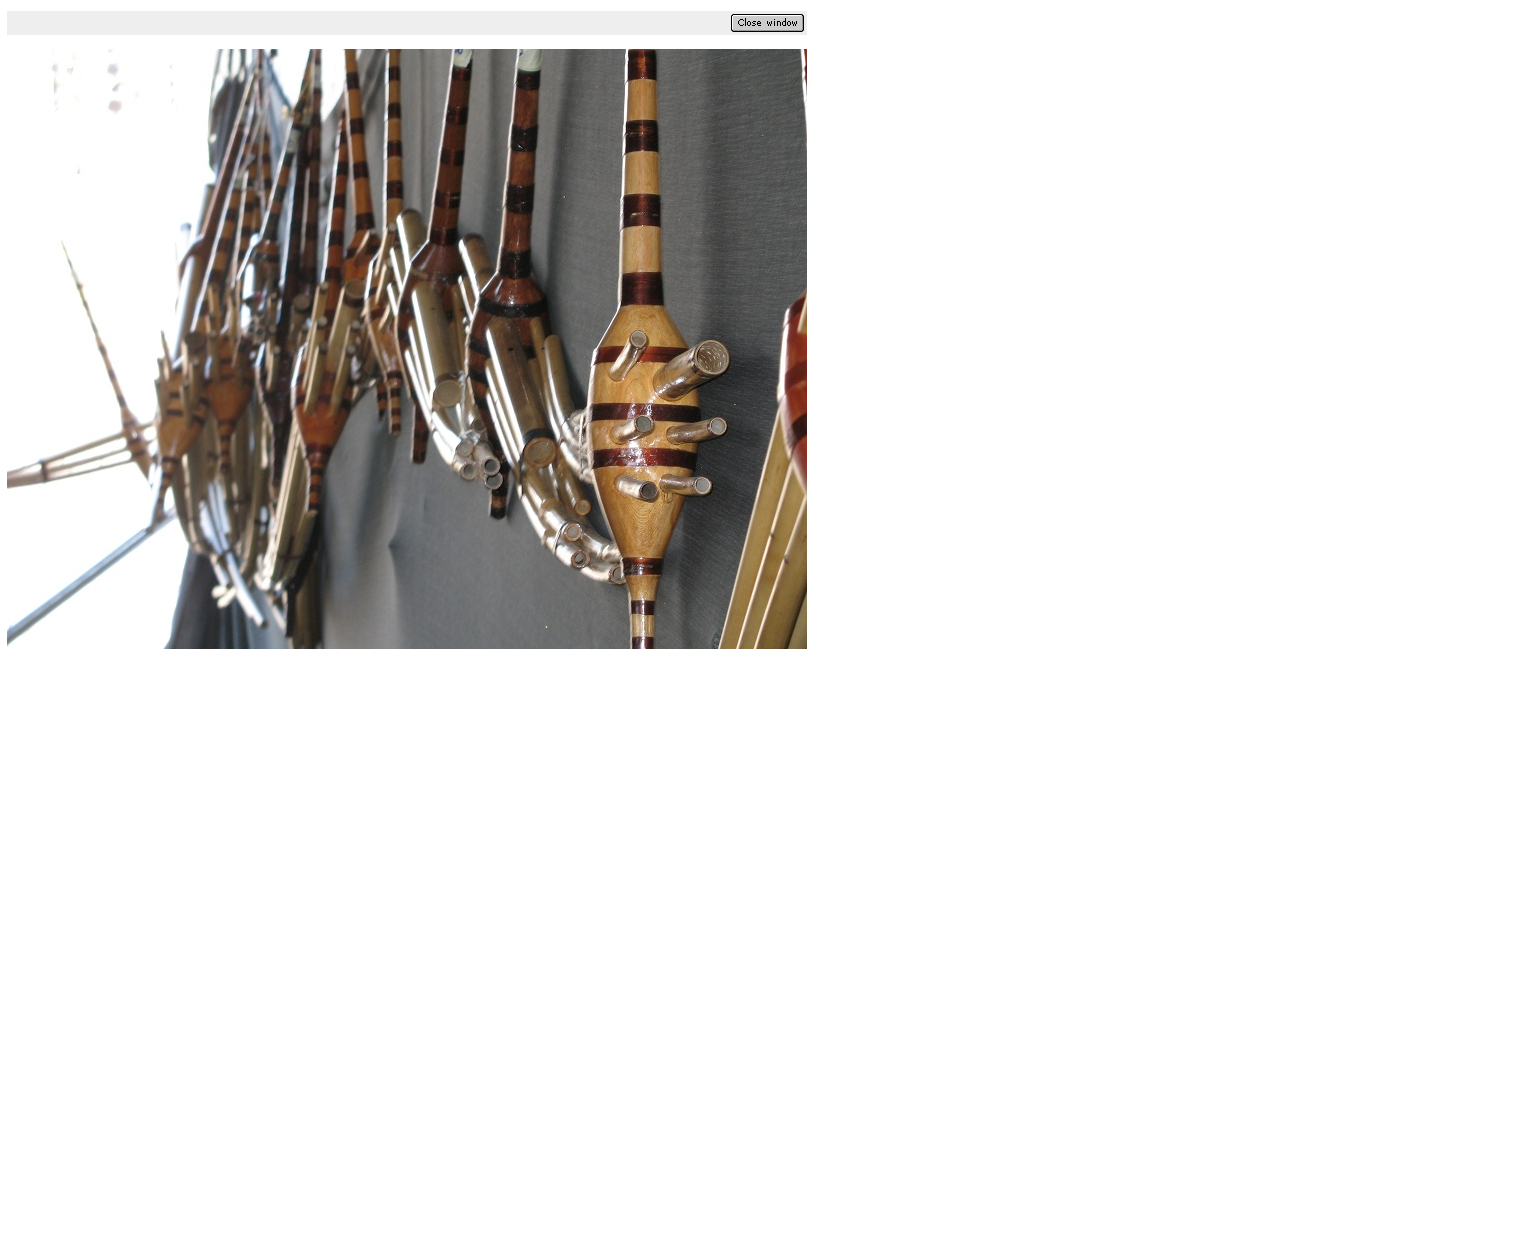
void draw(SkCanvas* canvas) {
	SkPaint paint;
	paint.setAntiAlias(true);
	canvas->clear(0xffffffff);
	paint.setColor(0xffeeeeee);
	canvas->drawRect(SkRect::MakeXYWH(7, 11, 800, 24), paint);
	canvas->drawImageRect(SkImages::DeferredFromEncodedData(SkData::MakeFromFileName("img1.png")), SkRect::MakeXYWH(731, 14, 73, 18), SkSamplingOptions());
	canvas->drawImageRect(SkImages::DeferredFromEncodedData(SkData::MakeFromFileName("img2.png")), SkRect::MakeXYWH(7, 49, 800, 600), SkSamplingOptions());
}
